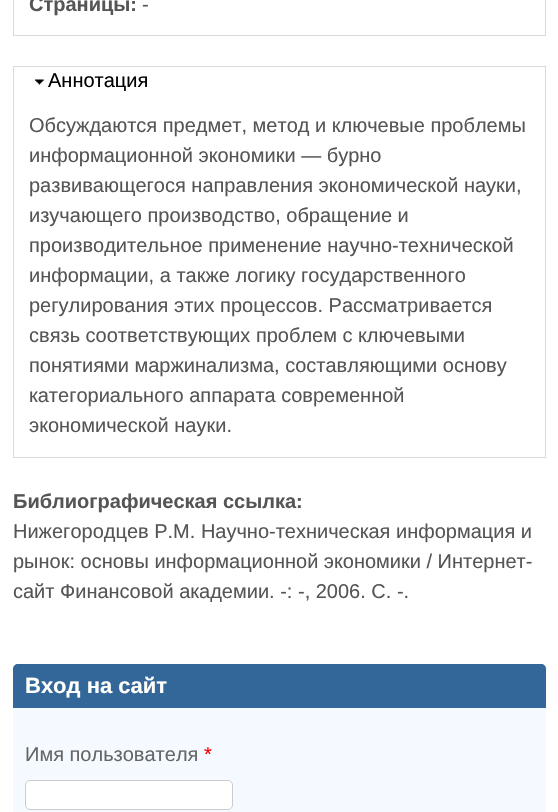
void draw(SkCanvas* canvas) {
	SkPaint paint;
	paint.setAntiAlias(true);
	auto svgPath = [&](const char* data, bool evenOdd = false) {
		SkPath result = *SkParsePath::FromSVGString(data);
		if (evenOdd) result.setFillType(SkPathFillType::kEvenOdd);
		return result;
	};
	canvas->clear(0xffffffff);
	paint.setStroke(true);
	paint.setStrokeWidth(1);
	paint.setColor(0xffdadada);
	canvas->drawRect(SkRect::MakeXYWH(13.5, -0.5, 532, 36), paint);
	SkFont f1(fontMgr->matchFamilyStyle("Liberation Sans", SkFontStyle::Bold()), 20);
	f1.setSubpixel(true);
	paint.setStroke(false);
	paint.setColor(0xff555555);
	canvas->drawString("Страницы:", 29, 11, f1, paint);
	SkFont f2(fontMgr->matchFamilyStyle("Liberation Sans", SkFontStyle::Normal()), 20);
	f2.setSubpixel(true);
	canvas->drawString("-", 142, 11, f2, paint);
	paint.setStroke(true);
	paint.setColor(0xffdadada);
	canvas->drawRect(SkRect::MakeXYWH(13.5, 66.5, 532, 391), paint);
	canvas->drawImageRect(SkImages::DeferredFromEncodedData(SkData::MakeFromFileName("img1.png")), SkRect::MakeXYWH(35, 79, 9, 6), SkSamplingOptions());
	paint.setStroke(false);
	paint.setColor(0xff000000);
	canvas->drawString("Аннотация", 48, 87, f2, paint);
	paint.setColor(0xff555555);
	canvas->drawString("Обсуждаются предмет, метод и ключевые проблемы", 29, 132, f2, paint);
	canvas->drawString("информационной экономики — бурно", 29, 162, f2, paint);
	canvas->drawString("развивающегося направления экономической науки,", 29, 192, f2, paint);
	canvas->drawString("изучающего производство, обращение и", 29, 222, f2, paint);
	canvas->drawString("производительное применение научно-технической", 29, 252, f2, paint);
	canvas->drawString("информации, а также логику государственного", 29, 282, f2, paint);
	canvas->drawString("регулирования этих процессов. Рассматривается", 29, 312, f2, paint);
	canvas->drawString("связь соответствующих проблем с ключевыми", 29, 342, f2, paint);
	canvas->drawString("понятиями маржинализма, составляющими основу", 29, 372, f2, paint);
	canvas->drawString("категориального аппарата современной", 29, 402, f2, paint);
	canvas->drawString("экономической науки.", 29, 432, f2, paint);
	canvas->drawString("Библиографическая ссылка:", 13, 508, f1, paint);
	canvas->drawString("Нижегородцев Р.М. Научно-техническая информация и", 13, 538, f2, paint);
	canvas->drawString("рынок: основы информационной экономики / Интернет-", 13, 568, f2, paint);
	canvas->drawString("сайт Финансовой академии. -: -, 2006. С. -.", 13, 598, f2, paint);
	paint.setColor(0xfff4faff);
	canvas->drawRoundRect(SkRect::MakeXYWH(13, 664, 533, 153), 5, 5, paint);
	paint.setColor(0xff336699);
	canvas->drawPath(svgPath("M18 664H541C544 664 546 666 546 669V708H13V669C13 666 15 664 18 664Z"), paint);
	SkFont f3(fontMgr->matchFamilyStyle("Liberation Sans", SkFontStyle::Bold()), 22);
	f3.setSubpixel(true);
	paint.setColor(0xfffffffc);
	canvas->drawString("Вход на сайт", 25, 693, f3, paint);
	paint.setColor(0xff666666);
	canvas->drawString("Имя пользователя", 25, 761, f2, paint);
	paint.setColor(0xffff0000);
	canvas->drawString("*", 204, 761, f2, paint);
	paint.setColor(0xffffffff);
	canvas->drawRoundRect(SkRect::MakeXYWH(25.5, 780.5, 207, 29), 4.5, 4.5, paint);
	paint.setStroke(true);
	paint.setColor(0xffcccccc);
	canvas->drawRoundRect(SkRect::MakeXYWH(25.5, 780.5, 207, 29), 4.5, 4.5, paint);
}
